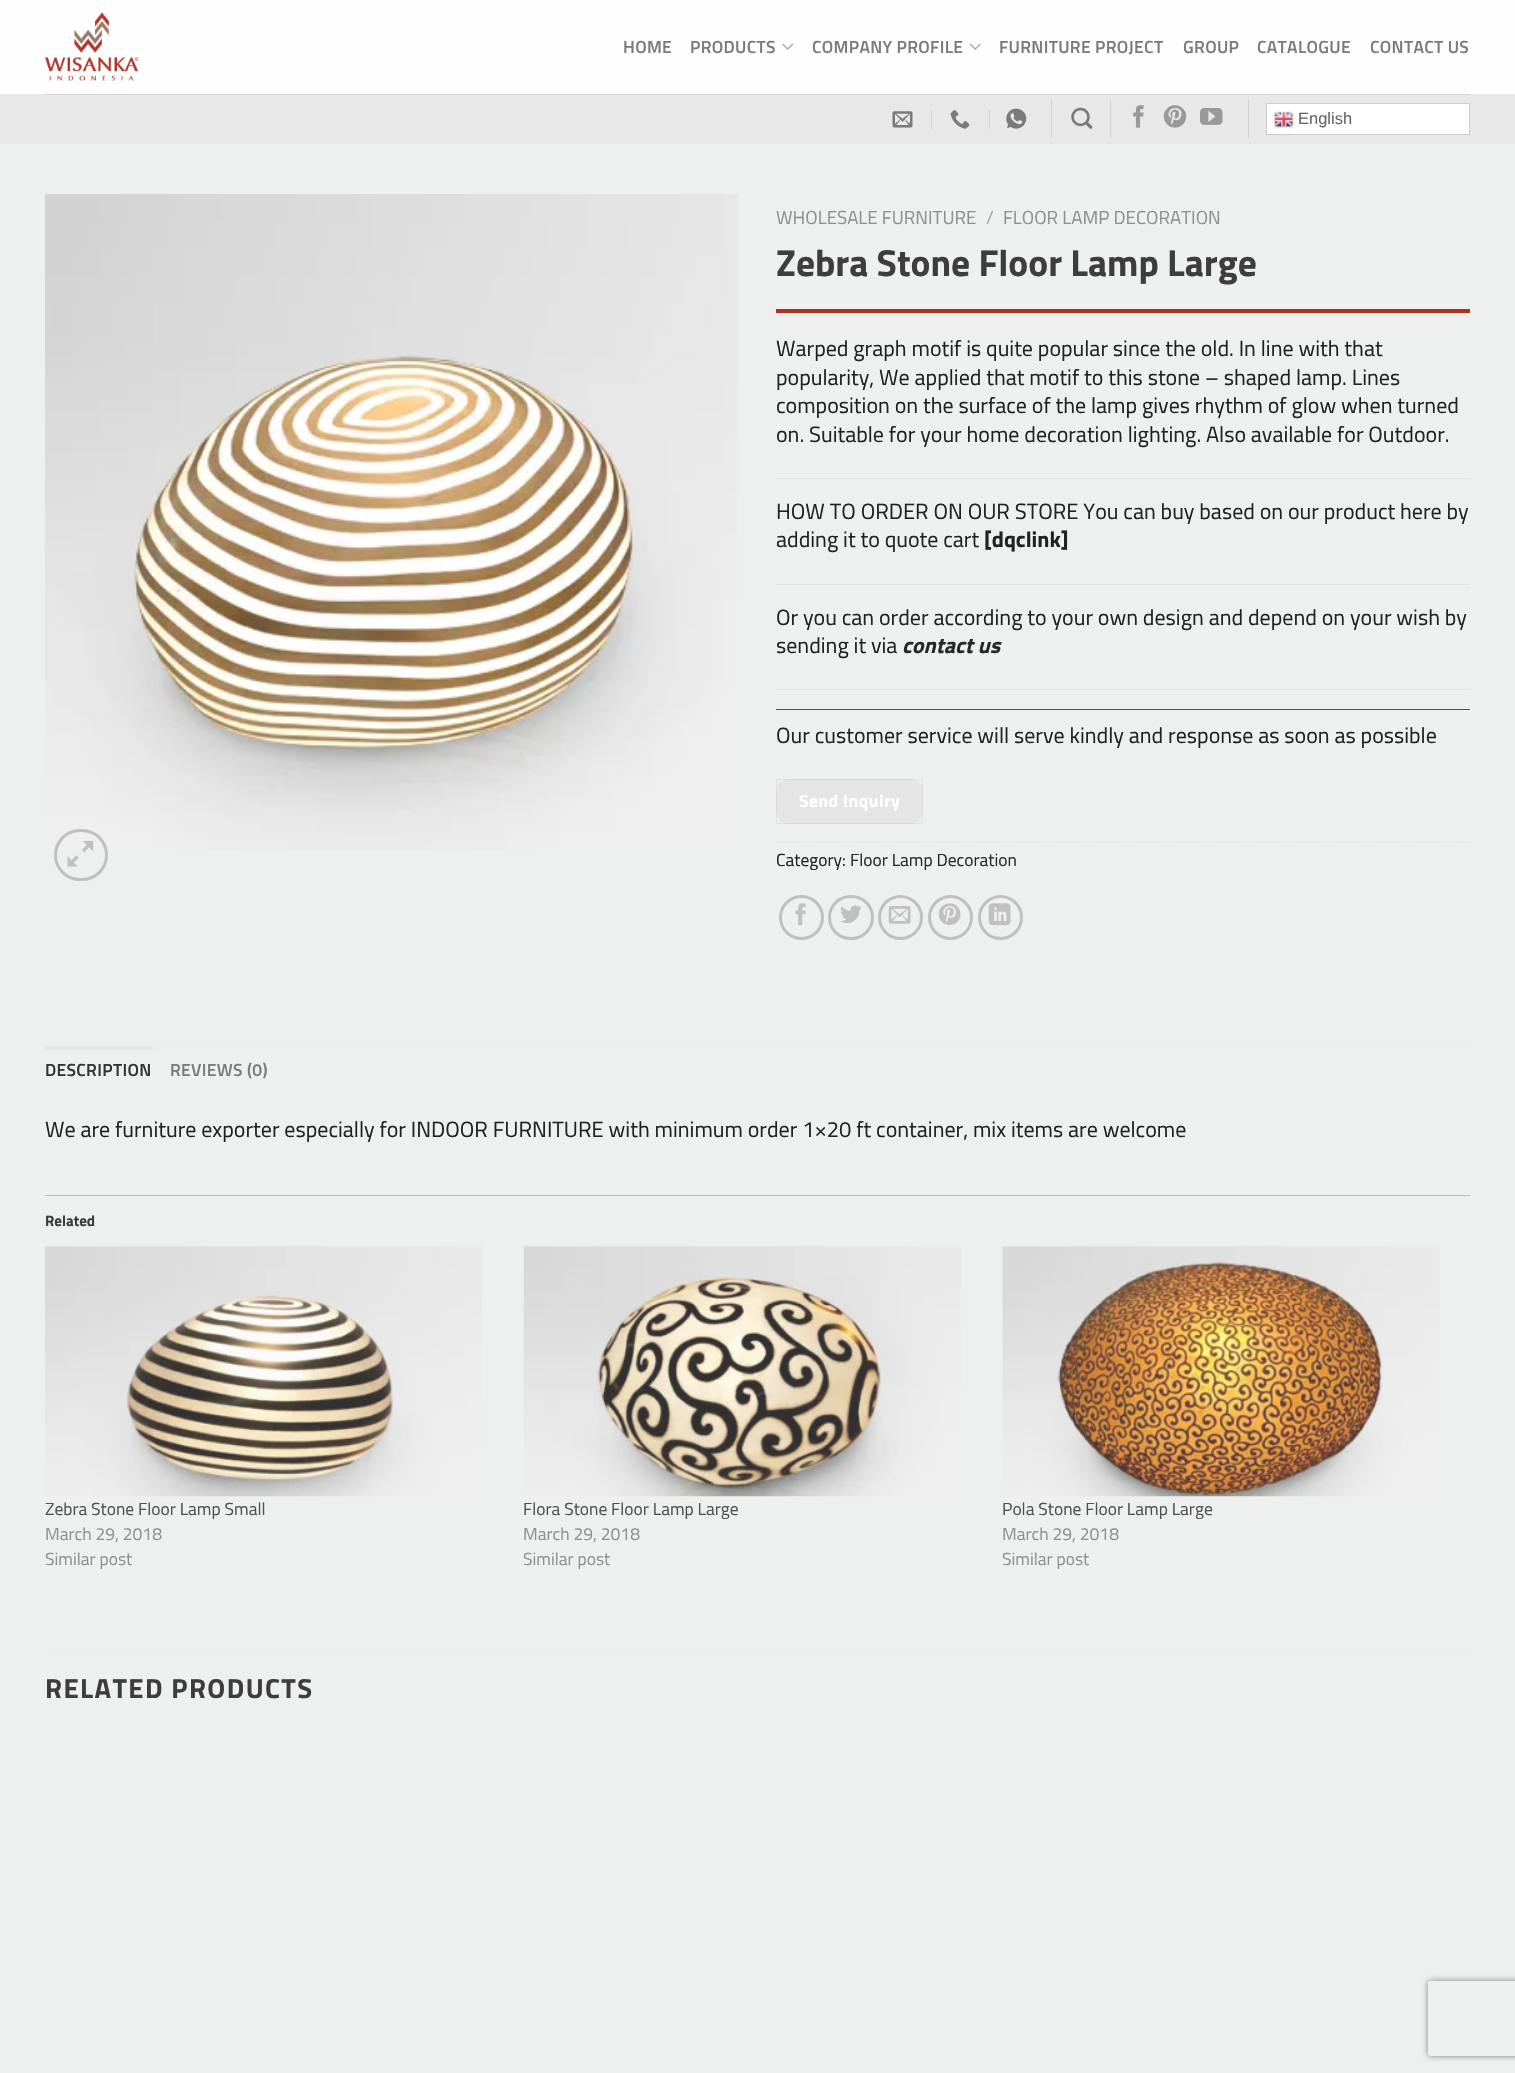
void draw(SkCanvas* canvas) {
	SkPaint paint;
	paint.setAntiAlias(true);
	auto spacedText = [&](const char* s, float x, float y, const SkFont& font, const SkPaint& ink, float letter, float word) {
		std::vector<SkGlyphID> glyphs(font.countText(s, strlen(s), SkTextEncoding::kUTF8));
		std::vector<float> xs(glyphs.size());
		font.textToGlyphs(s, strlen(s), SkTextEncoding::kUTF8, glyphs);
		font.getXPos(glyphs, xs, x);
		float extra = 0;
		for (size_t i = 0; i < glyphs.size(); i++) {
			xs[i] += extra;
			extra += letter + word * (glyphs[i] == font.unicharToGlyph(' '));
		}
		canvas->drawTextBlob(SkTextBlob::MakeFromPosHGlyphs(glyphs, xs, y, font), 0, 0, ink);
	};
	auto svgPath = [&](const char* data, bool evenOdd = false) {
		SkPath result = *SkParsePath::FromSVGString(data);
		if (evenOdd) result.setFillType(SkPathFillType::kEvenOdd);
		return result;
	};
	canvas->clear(0xffeef0ef);
	paint.setColor(0xfffdfefd);
	canvas->drawRect(SkRect::MakeXYWH(0, 0, 1515, 94), paint);
	canvas->drawImageRect(SkImages::DeferredFromEncodedData(SkData::MakeFromFileName("img1.png")), SkRect::MakeXYWH(45, 12, 94, 69), SkSamplingOptions());
	SkFont f1(fontMgr->matchFamilyStyle("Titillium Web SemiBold", SkFontStyle(600, SkFontStyle::kNormal_Width, SkFontStyle::kUpright_Slant)), 17.5);
	f1.setSubpixel(true);
	paint.setColor(0xff7a7b7b);
	spacedText("HOME", 623, 53, f1, paint, 0.3, 0);
	spacedText("PRODUCTS", 690, 53, f1, paint, 0.3, 0);
	canvas->drawImageRect(SkImages::DeferredFromEncodedData(SkData::MakeFromFileName("img2.png")), SkRect::MakeXYWH(782, 43, 12, 7), SkSamplingOptions());
	spacedText("COMPANY PROFILE", 812, 53, f1, paint, 0.3, 0);
	canvas->drawImageRect(SkImages::DeferredFromEncodedData(SkData::MakeFromFileName("img3.png")), SkRect::MakeXYWH(969, 43, 12, 7), SkSamplingOptions());
	spacedText("FURNITURE PROJECT", 999, 53, f1, paint, 0.3, 0);
	spacedText("GROUP", 1183, 53, f1, paint, 0.3, 0);
	spacedText("CATALOGUE", 1257, 53, f1, paint, 0.3, 0);
	spacedText("CONTACT US", 1370, 53, f1, paint, 0.3, 0);
	paint.setColor(0xffe8e8e8);
	canvas->drawRect(SkRect::MakeXYWH(0, 94, 1515, 50), paint);
	paint.setColor(0xffd4d4d4);
	canvas->drawRect(SkRect::MakeXYWH(45, 94, 1425, 1), paint);
	canvas->drawImageRect(SkImages::DeferredFromEncodedData(SkData::MakeFromFileName("img4.png")), SkRect::MakeXYWH(892, 111, 21, 17), SkSamplingOptions());
	paint.setColor(0xffd1d1d1);
	canvas->drawRect(SkRect::MakeXYWH(931, 110, 1, 19), paint);
	canvas->drawImageRect(SkImages::DeferredFromEncodedData(SkData::MakeFromFileName("img5.png")), SkRect::MakeXYWH(950, 110, 20, 19), SkSamplingOptions());
	canvas->drawRect(SkRect::MakeXYWH(989, 110, 1, 19), paint);
	canvas->drawImageRect(SkImages::DeferredFromEncodedData(SkData::MakeFromFileName("img6.png")), SkRect::MakeXYWH(1006, 108, 21, 21), SkSamplingOptions());
	canvas->drawRect(SkRect::MakeXYWH(1051, 100, 1, 38), paint);
	canvas->drawImageRect(SkImages::DeferredFromEncodedData(SkData::MakeFromFileName("img7.png")), SkRect::MakeXYWH(1071, 107, 22, 22), SkSamplingOptions());
	canvas->drawRect(SkRect::MakeXYWH(1110, 100, 1, 38), paint);
	canvas->drawImageRect(SkImages::DeferredFromEncodedData(SkData::MakeFromFileName("img8.png")), SkRect::MakeXYWH(1133, 105, 11, 23), SkSamplingOptions());
	canvas->drawImageRect(SkImages::DeferredFromEncodedData(SkData::MakeFromFileName("img9.png")), SkRect::MakeXYWH(1163, 105, 24, 23), SkSamplingOptions());
	canvas->drawImageRect(SkImages::DeferredFromEncodedData(SkData::MakeFromFileName("img10.png")), SkRect::MakeXYWH(1200, 108, 23, 17), SkSamplingOptions());
	canvas->drawRect(SkRect::MakeXYWH(1248, 100, 1, 38), paint);
	paint.setColor(0xffffffff);
	canvas->drawRect(SkRect::MakeXYWH(1266.5, 103.5, 203, 31), paint);
	paint.setStroke(true);
	paint.setStrokeWidth(1);
	paint.setColor(0xffcccccc);
	canvas->drawRect(SkRect::MakeXYWH(1266.5, 103.5, 203, 31), paint);
	canvas->drawImageRect(SkImages::DeferredFromEncodedData(SkData::MakeFromFileName("img11.png")), SkRect::MakeXYWH(1273, 111, 21, 18), SkSamplingOptions());
	SkFont f2(fontMgr->matchFamilyStyle("Liberation Sans", SkFontStyle::Normal()), 16.5);
	f2.setSubpixel(true);
	paint.setStroke(false);
	paint.setColor(0xff666666);
	canvas->drawString("English", 1298, 124, f2, paint);
	canvas->drawImageRect(SkImages::DeferredFromEncodedData(SkData::MakeFromFileName("img12.png")), SkRect::MakeXYWH(45, 194, 694, 657), SkSamplingOptions());
	paint.setStroke(true);
	paint.setStrokeWidth(3);
	paint.setColor(0xffc0c0c0);
	canvas->drawRoundRect(SkRect::MakeXYWH(55.5, 830.5, 51, 49), 24.5, 24.5, paint);
	canvas->drawImageRect(SkImages::DeferredFromEncodedData(SkData::MakeFromFileName("img13.png")), SkRect::MakeXYWH(67, 841, 27, 26), SkSamplingOptions());
	SkFont f3(fontMgr->matchFamilyStyle("Titillium Web", SkFontStyle::Normal()), 18.75);
	f3.setSubpixel(true);
	paint.setStroke(false);
	paint.setColor(0xff8f8f8f);
	canvas->drawString("WHOLESALE FURNITURE", 776, 224, f3, paint);
	paint.setColor(0xffa7a8a7);
	canvas->drawString("/", 986, 224, f3, paint);
	paint.setColor(0xff8f8f8f);
	canvas->drawString("FLOOR LAMP DECORATION", 1003, 224, f3, paint);
	SkFont f4(fontMgr->matchFamilyStyle("Titillium Web", SkFontStyle::Bold()), 37.4);
	f4.setSubpixel(true);
	paint.setColor(0xff3d3d3d);
	canvas->drawString("Zebra Stone Floor Lamp Large", 776, 276, f4, paint);
	paint.setColor(0xffb0301c);
	canvas->drawRect(SkRect::MakeXYWH(776, 309, 694, 4), paint);
	SkFont f5(fontMgr->matchFamilyStyle("Titillium Web", SkFontStyle::Normal()), 22);
	f5.setSubpixel(true);
	paint.setColor(0xff212121);
	canvas->drawString("Warped graph motif is quite popular since the old. In line with that", 776, 356, f5, paint);
	canvas->drawString("popularity, We applied that motif to this stone – shaped lamp. Lines", 776, 385, f5, paint);
	canvas->drawString("composition on the surface of the lamp gives rhythm of glow when turned", 776, 413, f5, paint);
	canvas->drawString("on. Suitable for your home decoration lighting. Also available for Outdoor.", 776, 442, f5, paint);
	paint.setColor(0xffe3e5e4);
	canvas->drawRect(SkRect::MakeXYWH(776, 478, 694, 1), paint);
	paint.setColor(0xff212121);
	canvas->drawString("HOW TO ORDER ON OUR STORE You can buy based on our product here by", 776, 519, f5, paint);
	canvas->drawString("adding it to quote cart", 776, 547, f5, paint);
	SkFont f6(fontMgr->matchFamilyStyle("Titillium Web", SkFontStyle::Bold()), 22);
	f6.setSubpixel(true);
	canvas->drawString("[dqclink]", 984, 547, f6, paint);
	paint.setColor(0xffe3e5e4);
	canvas->drawRect(SkRect::MakeXYWH(776, 584, 694, 1), paint);
	paint.setColor(0xff212121);
	canvas->drawString("Or you can order according to your own design and depend on your wish by", 776, 625, f5, paint);
	canvas->drawString("sending it via", 776, 653, f5, paint);
	SkFont f7(fontMgr->matchFamilyStyle("Titillium Web", SkFontStyle::BoldItalic()), 22);
	f7.setSubpixel(true);
	paint.setColor(0xff282828);
	canvas->drawString("contact us", 902, 653, f7, paint);
	paint.setColor(0xffe3e5e4);
	canvas->drawRect(SkRect::MakeXYWH(776, 689, 694, 1), paint);
	paint.setColor(0xffb0301c);
	canvas->drawRect(SkRect::MakeXYWH(776, 709, 694, 1), paint);
	paint.setColor(0xff212121);
	canvas->drawString("Our customer service will serve kindly and response as soon as possible", 776, 743, f5, paint);
	paint.setColor(0xffe5e5e5);
	canvas->drawRoundRect(SkRect::MakeXYWH(776, 779, 147, 45), 13, 13, paint);
	paint.setStroke(true);
	paint.setStrokeWidth(1);
	paint.setColor(0x0d000000);
	canvas->drawRect(SkRect::MakeXYWH(776.5, 779.5, 146, 44), paint);
	SkFont f8(fontMgr->matchFamilyStyle("Titillium Web", SkFontStyle::Bold()), 17.5);
	f8.setSubpixel(true);
	paint.setStroke(false);
	paint.setColor(0xffffffff);
	spacedText("Send Inquiry", 799, 807, f8, paint, 0.5, 0);
	paint.setStroke(true);
	paint.setStrokeWidth(1.2);
	paint.setColor(0xffdddddd);
	paint.setPathEffect(SkDashPathEffect::Make({{1.25f, 1.25f}}, 0));
	canvas->drawPath(svgPath("M776 842H1470"), paint);
	paint.setPathEffect(nullptr);
	SkFont f9(fontMgr->matchFamilyStyle("Titillium Web", SkFontStyle::Normal()), 17.5);
	f9.setSubpixel(true);
	paint.setStroke(false);
	paint.setColor(0xff212121);
	canvas->drawString("Category:", 776, 866, f9, paint);
	paint.setColor(0xff282828);
	canvas->drawString("Floor Lamp Decoration", 850, 866, f9, paint);
	paint.setStroke(true);
	paint.setStrokeWidth(3);
	paint.setColor(0xffc0c0c0);
	canvas->drawCircle(801.5, 917.5, 21, paint);
	canvas->drawImageRect(SkImages::DeferredFromEncodedData(SkData::MakeFromFileName("img14.png")), SkRect::MakeXYWH(795, 903, 11, 23), SkSamplingOptions());
	canvas->drawRoundRect(SkRect::MakeXYWH(829.5, 896.5, 43, 42), 21, 21, paint);
	canvas->drawImageRect(SkImages::DeferredFromEncodedData(SkData::MakeFromFileName("img15.png")), SkRect::MakeXYWH(840, 905, 22, 18), SkSamplingOptions());
	canvas->drawCircle(900.5, 917.5, 21, paint);
	canvas->drawImageRect(SkImages::DeferredFromEncodedData(SkData::MakeFromFileName("img16.png")), SkRect::MakeXYWH(888, 906, 23, 18), SkSamplingOptions());
	canvas->drawCircle(950.5, 917.5, 21, paint);
	canvas->drawImageRect(SkImages::DeferredFromEncodedData(SkData::MakeFromFileName("img17.png")), SkRect::MakeXYWH(938, 903, 23, 22), SkSamplingOptions());
	canvas->drawCircle(1000.5, 917.5, 21, paint);
	canvas->drawImageRect(SkImages::DeferredFromEncodedData(SkData::MakeFromFileName("img18.png")), SkRect::MakeXYWH(988, 903, 23, 23), SkSamplingOptions());
	paint.setStroke(false);
	paint.setColor(0xffececec);
	canvas->drawRect(SkRect::MakeXYWH(153, 1046, 1317, 1), paint);
	paint.setColor(0xffe5e5e5);
	canvas->drawRect(SkRect::MakeXYWH(45, 1046, 108, 4), paint);
	paint.setColor(0xff333333);
	spacedText("DESCRIPTION", 45, 1076, f1, paint, 0.3, 0);
	paint.setColor(0xff7a7b7b);
	spacedText("REVIEWS (0)", 170, 1076, f1, paint, 0.3, 0);
	paint.setColor(0xff212121);
	canvas->drawString("We are furniture exporter especially for INDOOR FURNITURE with minimum order 1×20 ft container, mix items are welcome", 45, 1137, f5, paint);
	paint.setColor(0xffbec0bf);
	canvas->drawRect(SkRect::MakeXYWH(45, 1195, 1425, 1), paint);
	SkFont f10(fontMgr->matchFamilyStyle("Titillium Web", SkFontStyle::Bold()), 15);
	f10.setSubpixel(true);
	paint.setColor(0xff3d3d3d);
	canvas->drawString("Related", 45, 1226, f10, paint);
	canvas->drawImageRect(SkImages::DeferredFromEncodedData(SkData::MakeFromFileName("img19.png")), SkRect::MakeXYWH(45, 1246, 437, 251), SkSamplingOptions());
	paint.setColor(0xff505050);
	canvas->drawString("Zebra Stone Floor Lamp Small", 45, 1515, f9, paint);
	paint.setColor(0xff8f8f8f);
	canvas->drawString("March 29, 2018", 45, 1540, f9, paint);
	canvas->drawString("Similar post", 45, 1565, f9, paint);
	canvas->drawImageRect(SkImages::DeferredFromEncodedData(SkData::MakeFromFileName("img20.png")), SkRect::MakeXYWH(523, 1246, 438, 251), SkSamplingOptions());
	paint.setColor(0xff505050);
	canvas->drawString("Flora Stone Floor Lamp Large", 523, 1515, f9, paint);
	paint.setColor(0xff8f8f8f);
	canvas->drawString("March 29, 2018", 523, 1540, f9, paint);
	canvas->drawString("Similar post", 523, 1565, f9, paint);
	canvas->drawImageRect(SkImages::DeferredFromEncodedData(SkData::MakeFromFileName("img21.png")), SkRect::MakeXYWH(1002, 1246, 438, 251), SkSamplingOptions());
	paint.setColor(0xff505050);
	canvas->drawString("Pola Stone Floor Lamp Large", 1002, 1515, f9, paint);
	paint.setColor(0xff8f8f8f);
	canvas->drawString("March 29, 2018", 1002, 1540, f9, paint);
	canvas->drawString("Similar post", 1002, 1565, f9, paint);
	paint.setColor(0xffececec);
	canvas->drawRect(SkRect::MakeXYWH(45, 1653, 1425, 1), paint);
	SkFont f11(fontMgr->matchFamilyStyle("Titillium Web", SkFontStyle::Bold()), 27.5);
	f11.setSubpixel(true);
	paint.setColor(0xff3d3d3d);
	spacedText("RELATED PRODUCTS", 45, 1698, f11, paint, 1.4, 0);
	canvas->save();
	canvas->clipPath(svgPath("M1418 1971H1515V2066H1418ZM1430.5 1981H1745.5C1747 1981 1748 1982 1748 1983.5V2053.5C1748 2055 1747 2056 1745.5 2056H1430.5C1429 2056 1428 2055 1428 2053.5V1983.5C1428 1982 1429 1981 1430.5 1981Z", true), true);
	paint.setColor(0xff808080);
	paint.setMaskFilter(SkMaskFilter::MakeBlur(kNormal_SkBlurStyle, 3));
	canvas->drawRoundRect(SkRect::MakeXYWH(1428, 1981, 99, 75), 2.5, 2.5, paint);
	paint.setMaskFilter(nullptr);
	canvas->restore();
}
